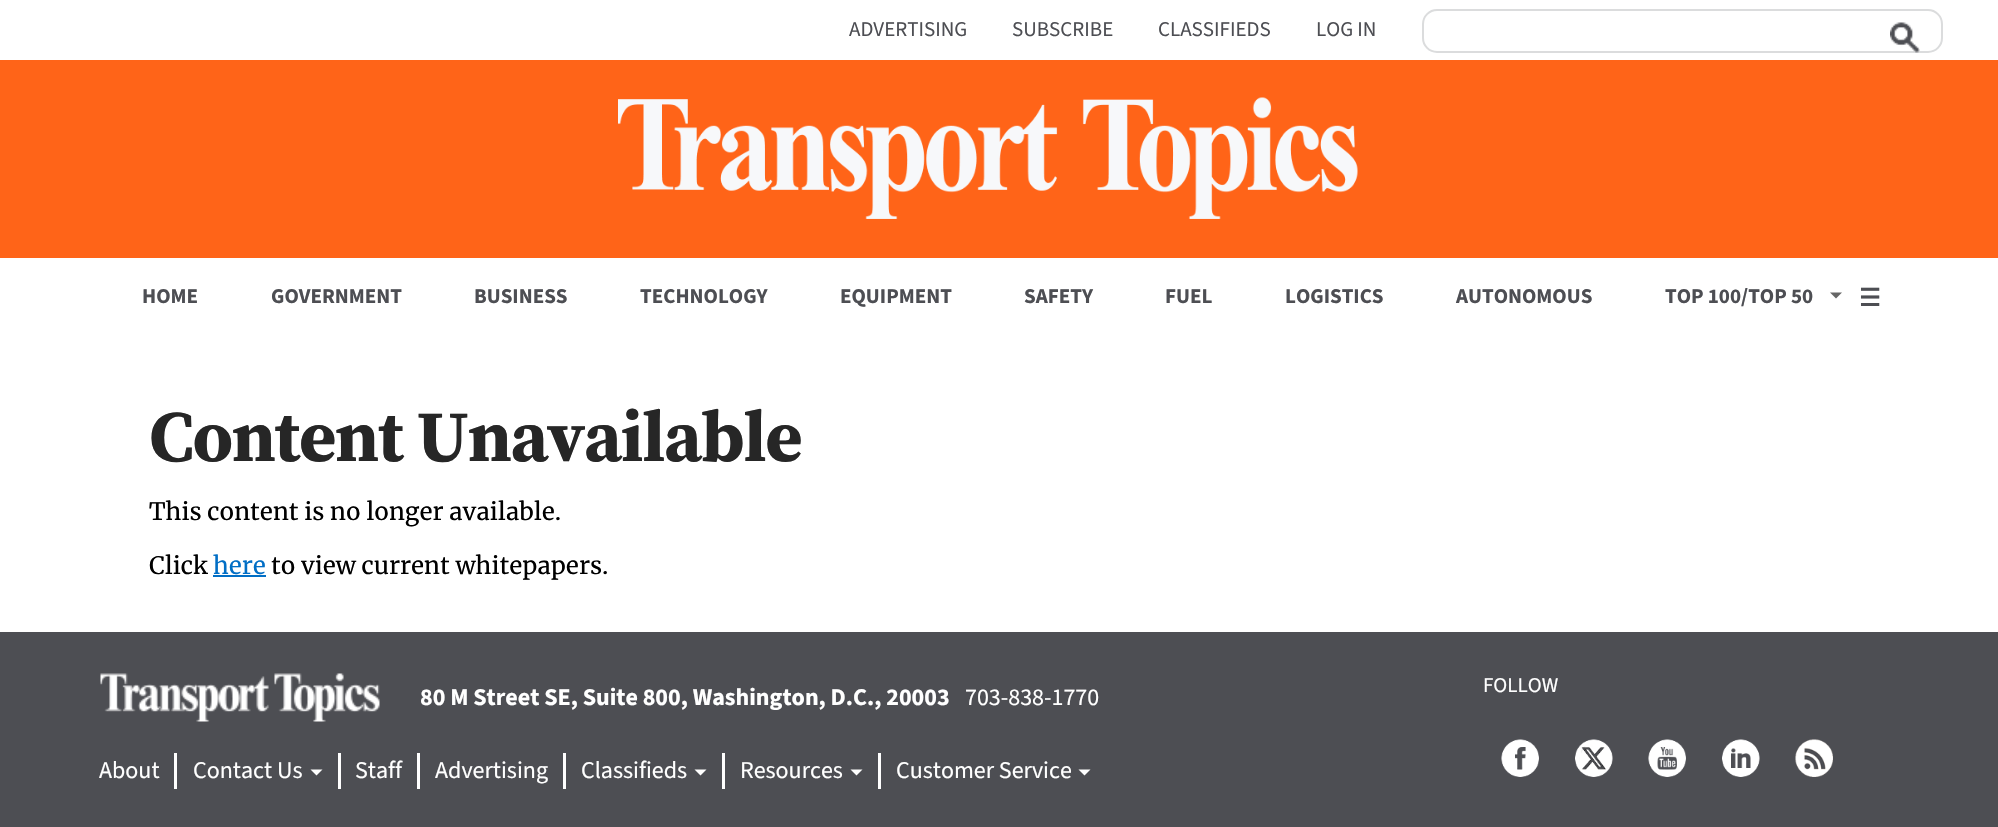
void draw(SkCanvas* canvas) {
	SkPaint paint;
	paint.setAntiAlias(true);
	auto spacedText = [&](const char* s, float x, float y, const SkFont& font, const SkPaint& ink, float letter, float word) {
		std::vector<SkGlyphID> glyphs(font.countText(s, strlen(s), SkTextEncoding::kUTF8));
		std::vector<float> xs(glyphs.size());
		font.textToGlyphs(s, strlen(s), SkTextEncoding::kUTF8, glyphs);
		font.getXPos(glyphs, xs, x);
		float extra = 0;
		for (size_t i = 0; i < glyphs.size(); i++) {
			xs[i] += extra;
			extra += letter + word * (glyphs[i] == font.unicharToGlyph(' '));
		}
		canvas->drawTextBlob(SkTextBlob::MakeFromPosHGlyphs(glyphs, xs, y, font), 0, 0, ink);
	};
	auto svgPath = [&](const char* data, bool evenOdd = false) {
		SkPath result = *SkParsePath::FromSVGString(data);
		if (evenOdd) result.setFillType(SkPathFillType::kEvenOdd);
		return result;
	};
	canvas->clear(0xffffffff);
	SkFont f1(fontMgr->matchFamilyStyle("Source Sans 3", SkFontStyle::Normal()), 21);
	f1.setSubpixel(true);
	paint.setColor(0xff4d4e53);
	canvas->drawString("ADVERTISING", 849, 36, f1, paint);
	canvas->drawString("SUBSCRIBE", 1012, 36, f1, paint);
	canvas->drawString("CLASSIFIEDS", 1158, 36, f1, paint);
	canvas->drawString("LOG IN", 1316, 36, f1, paint);
	paint.setStroke(true);
	paint.setStrokeWidth(2);
	paint.setColor(0xffdbdcdd);
	canvas->drawRoundRect(SkRect::MakeXYWH(1423, 10, 519, 42), 14, 14, paint);
	canvas->drawImageRect(SkImages::DeferredFromEncodedData(SkData::MakeFromFileName("img1.png")), SkRect::MakeXYWH(1890, 22, 30, 31), SkSamplingOptions());
	paint.setStroke(false);
	paint.setColor(0xffff6418);
	canvas->drawRect(SkRect::MakeXYWH(0, 60, 1998, 198), paint);
	canvas->drawImageRect(SkImages::DeferredFromEncodedData(SkData::MakeFromFileName("img2.png")), SkRect::MakeXYWH(618, 97, 740, 122), SkSamplingOptions());
	SkFont f2(fontMgr->matchFamilyStyle("Source Sans 3", SkFontStyle::Bold()), 21);
	f2.setSubpixel(true);
	paint.setColor(0xff4d4e53);
	canvas->drawString("HOME", 142, 303, f2, paint);
	canvas->drawString("GOVERNMENT", 271, 303, f2, paint);
	canvas->drawString("BUSINESS", 474, 303, f2, paint);
	canvas->drawString("TECHNOLOGY", 640, 303, f2, paint);
	canvas->drawString("EQUIPMENT", 840, 303, f2, paint);
	canvas->drawString("SAFETY", 1024, 303, f2, paint);
	canvas->drawString("FUEL", 1165, 303, f2, paint);
	canvas->drawString("LOGISTICS", 1285, 303, f2, paint);
	canvas->drawString("AUTONOMOUS", 1456, 303, f2, paint);
	canvas->drawString("TOP 100/TOP 50", 1665, 303, f2, paint);
	paint.setColor(0xff666666);
	canvas->drawPath(svgPath("M1830 292.5H1842L1836 298.5Z"), paint);
	SkFont f3(fontMgr->matchFamilyStyle("DejaVu Sans", SkFontStyle::Bold()), 24);
	f3.setSubpixel(true);
	paint.setColor(0xff4d4e53);
	canvas->drawString("☰", 1859, 306, f3, paint);
	SkFont f4(fontMgr->matchFamilyStyle("Source Serif 4", SkFontStyle::Bold()), 72);
	f4.setSubpixel(true);
	paint.setColor(0xff262626);
	spacedText("Content Unavailable", 149, 461, f4, paint, -1.4, 0);
	SkFont f5(fontMgr->matchFamilyStyle("Merriweather", SkFontStyle::Normal()), 24);
	f5.setSubpixel(true);
	paint.setColor(0xff000000);
	canvas->drawString("This content is no longer available.", 149, 520, f5, paint);
	canvas->drawString("Click", 149, 574, f5, paint);
	paint.setColor(0xff016ec5);
	canvas->drawString("here", 213, 574, f5, paint);
	canvas->drawRect(SkRect::MakeXYWH(213, 575, 53, 2), paint);
	paint.setColor(0xff000000);
	canvas->drawString("to view current whitepapers.", 271, 574, f5, paint);
	paint.setColor(0xff4d4e53);
	canvas->drawRect(SkRect::MakeXYWH(0, 632, 1998, 195), paint);
	paint.setColor(0xffffffff);
	canvas->drawString("FOLLOW", 1483, 692, f1, paint);
	canvas->drawImageRect(SkImages::DeferredFromEncodedData(SkData::MakeFromFileName("img3.png")), SkRect::MakeXYWH(1501, 739, 38, 38), SkSamplingOptions());
	canvas->drawImageRect(SkImages::DeferredFromEncodedData(SkData::MakeFromFileName("img4.png")), SkRect::MakeXYWH(1575, 739, 38, 38), SkSamplingOptions());
	canvas->drawImageRect(SkImages::DeferredFromEncodedData(SkData::MakeFromFileName("img5.png")), SkRect::MakeXYWH(1648, 739, 38, 38), SkSamplingOptions());
	canvas->drawImageRect(SkImages::DeferredFromEncodedData(SkData::MakeFromFileName("img6.png")), SkRect::MakeXYWH(1722, 739, 38, 38), SkSamplingOptions());
	canvas->drawImageRect(SkImages::DeferredFromEncodedData(SkData::MakeFromFileName("img7.png")), SkRect::MakeXYWH(1795, 739, 38, 38), SkSamplingOptions());
	canvas->drawImageRect(SkImages::DeferredFromEncodedData(SkData::MakeFromFileName("img8.png")), SkRect::MakeXYWH(100, 673, 280, 49), SkSamplingOptions());
	SkFont f6(fontMgr->matchFamilyStyle("Source Sans 3", SkFontStyle::Bold()), 24);
	f6.setSubpixel(true);
	canvas->drawString("80 M Street SE, Suite 800, Washington, D.C., 20003", 420, 705, f6, paint);
	SkFont f7(fontMgr->matchFamilyStyle("Source Sans 3", SkFontStyle::Normal()), 24);
	f7.setSubpixel(true);
	canvas->drawString("703-838-1770", 965, 705, f7, paint);
	canvas->drawRect(SkRect::MakeXYWH(174, 753, 3, 36), paint);
	canvas->drawString("About", 99, 778, f7, paint);
	canvas->drawRect(SkRect::MakeXYWH(338, 753, 3, 36), paint);
	canvas->drawString("Contact Us", 193, 778, f7, paint);
	canvas->drawPath(svgPath("M310.5 769.5H322.5L316.5 775.5Z"), paint);
	canvas->drawRect(SkRect::MakeXYWH(417, 753, 3, 36), paint);
	canvas->drawString("Staff", 355, 778, f7, paint);
	canvas->drawRect(SkRect::MakeXYWH(563, 753, 3, 36), paint);
	canvas->drawString("Advertising", 435, 778, f7, paint);
	canvas->drawRect(SkRect::MakeXYWH(722, 753, 3, 36), paint);
	canvas->drawString("Classifieds", 581, 778, f7, paint);
	canvas->drawPath(svgPath("M694.5 769.5H706.5L700.5 775.5Z"), paint);
	canvas->drawRect(SkRect::MakeXYWH(878, 753, 3, 36), paint);
	canvas->drawString("Resources", 740, 778, f7, paint);
	canvas->drawPath(svgPath("M850.5 769.5H862.5L856.5 775.5Z"), paint);
	canvas->drawString("Customer Service", 896, 778, f7, paint);
	canvas->drawPath(svgPath("M1078.5 769.5H1090.5L1084.5 775.5Z"), paint);
}
